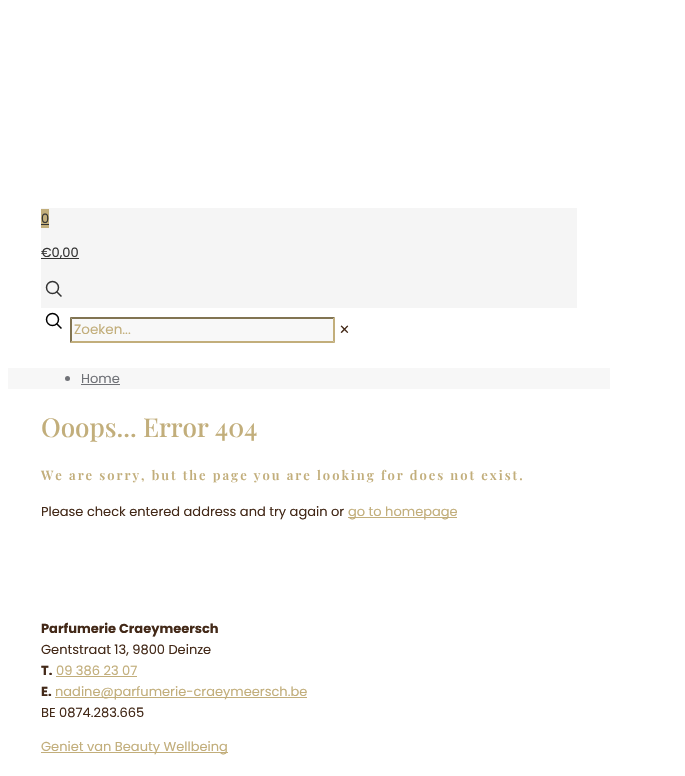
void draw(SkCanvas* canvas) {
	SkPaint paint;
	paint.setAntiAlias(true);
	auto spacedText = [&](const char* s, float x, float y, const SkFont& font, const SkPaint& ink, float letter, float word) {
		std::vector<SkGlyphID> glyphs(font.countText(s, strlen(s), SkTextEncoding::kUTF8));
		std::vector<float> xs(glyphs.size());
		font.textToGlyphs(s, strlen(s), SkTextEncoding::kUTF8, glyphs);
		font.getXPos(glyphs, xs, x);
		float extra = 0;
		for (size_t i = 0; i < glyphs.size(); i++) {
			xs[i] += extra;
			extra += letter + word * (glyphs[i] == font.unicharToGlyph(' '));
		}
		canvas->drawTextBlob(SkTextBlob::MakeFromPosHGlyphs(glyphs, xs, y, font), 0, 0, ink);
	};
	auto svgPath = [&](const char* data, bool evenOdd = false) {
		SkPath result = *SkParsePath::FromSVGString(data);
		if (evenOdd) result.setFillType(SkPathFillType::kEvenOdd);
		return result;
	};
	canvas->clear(0xffffffff);
	paint.setColor(0xfff5f5f5);
	canvas->drawRect(SkRect::MakeXYWH(41, 208, 536, 100), paint);
	paint.setColor(0xffc2ae7b);
	canvas->drawRect(SkRect::MakeXYWH(41, 209, 8, 19), paint);
	SkFont f1(fontMgr->matchFamilyStyle("Poppins", SkFontStyle::Normal()), 13);
	f1.setSubpixel(true);
	paint.setColor(0xff333333);
	canvas->drawString("0", 41, 223, f1, paint);
	canvas->drawRect(SkRect::MakeXYWH(41, 224, 8, 1), paint);
	canvas->drawRect(SkRect::MakeXYWH(41, 258, 38, 1), paint);
	canvas->drawString("€0,00", 41, 257, f1, paint);
	paint.setStroke(true);
	paint.setStrokeWidth(1.5);
	canvas->drawCircle(52.5, 287.5, 6, paint);
	canvas->drawPath(svgPath("M56.5 291.5L61.5 296.5"), paint);
	paint.setColor(0xff000000);
	canvas->drawCircle(52.5, 319.5, 6, paint);
	canvas->drawPath(svgPath("M56.5 323.5L61.5 328.5"), paint);
	paint.setStroke(false);
	paint.setColor(0xfff8f8f8);
	canvas->drawRect(SkRect::MakeXYWH(70, 317, 265, 26), paint);
	paint.setColor(0xff817452);
	canvas->drawPath(svgPath("M70 317H335L333 319H72Z"), paint);
	paint.setColor(0xffc2ae7b);
	canvas->drawPath(svgPath("M335 317V343L333 341V319Z"), paint);
	canvas->drawPath(svgPath("M335 343H70L72 341H333Z"), paint);
	paint.setColor(0xff817452);
	canvas->drawPath(svgPath("M70 343V317L72 319V341Z"), paint);
	SkFont f2(fontMgr->matchFamilyStyle("Poppins", SkFontStyle::Normal()), 13.5);
	f2.setSubpixel(true);
	paint.setColor(0xffc2ae7b);
	canvas->drawString("Zoeken...", 74, 334, f2, paint);
	SkFont f3(fontMgr->matchFamilyStyle("DejaVu Sans", SkFontStyle::Normal()), 13);
	f3.setSubpixel(true);
	paint.setColor(0xff432918);
	canvas->drawString("✕", 339, 334, f3, paint);
	paint.setColor(0xfff7f7f7);
	canvas->drawRect(SkRect::MakeXYWH(8, 368, 602, 21), paint);
	paint.setColor(0xff707277);
	canvas->drawCircle(67.5, 378.5, 2.5, paint);
	canvas->drawString("Home", 81, 383, f1, paint);
	canvas->drawRect(SkRect::MakeXYWH(81, 384, 39, 1), paint);
	SkFont f4(fontMgr->matchFamilyStyle("Playfair Display", SkFontStyle(500, SkFontStyle::kNormal_Width, SkFontStyle::kUpright_Slant)), 26);
	f4.setSubpixel(true);
	paint.setColor(0xffc2ae7b);
	canvas->drawString("Ooops... Error 404", 41, 437, f4, paint);
	SkFont f5(fontMgr->matchFamilyStyle("Playfair Display", SkFontStyle(600, SkFontStyle::kNormal_Width, SkFontStyle::kUpright_Slant)), 13);
	f5.setSubpixel(true);
	spacedText("We are sorry, but the page you are looking for does not exist.", 41, 480, f5, paint, 2, 0);
	paint.setColor(0xff432918);
	canvas->drawString("Please check entered address and try again or", 41, 516, f1, paint);
	paint.setColor(0xffc2ae7b);
	canvas->drawRect(SkRect::MakeXYWH(348, 517, 109, 1), paint);
	canvas->drawString("go to homepage", 348, 516, f1, paint);
	SkFont f6(fontMgr->matchFamilyStyle("Poppins", SkFontStyle::Bold()), 13);
	f6.setSubpixel(true);
	paint.setColor(0xff432918);
	canvas->drawString("Parfumerie Craeymeersch", 41, 633, f6, paint);
	canvas->drawString("Gentstraat 13, 9800 Deinze", 41, 654, f1, paint);
	canvas->drawString("T.", 41, 675, f6, paint);
	paint.setColor(0xffc2ae7b);
	canvas->drawString("09 386 23 07", 56, 675, f1, paint);
	canvas->drawRect(SkRect::MakeXYWH(56, 676, 81, 1), paint);
	paint.setColor(0xff432918);
	canvas->drawString("E.", 41, 696, f6, paint);
	paint.setColor(0xffc2ae7b);
	canvas->drawRect(SkRect::MakeXYWH(55, 697, 252, 1), paint);
	canvas->drawString("nadine@parfumerie-craeymeersch.be", 55, 696, f1, paint);
	paint.setColor(0xff432918);
	canvas->drawString("BE 0874.283.665", 41, 717, f1, paint);
	paint.setColor(0xffc2ae7b);
	canvas->drawRect(SkRect::MakeXYWH(41, 752, 187, 1), paint);
	canvas->drawString("Geniet van Beauty Wellbeing", 41, 751, f1, paint);
}
